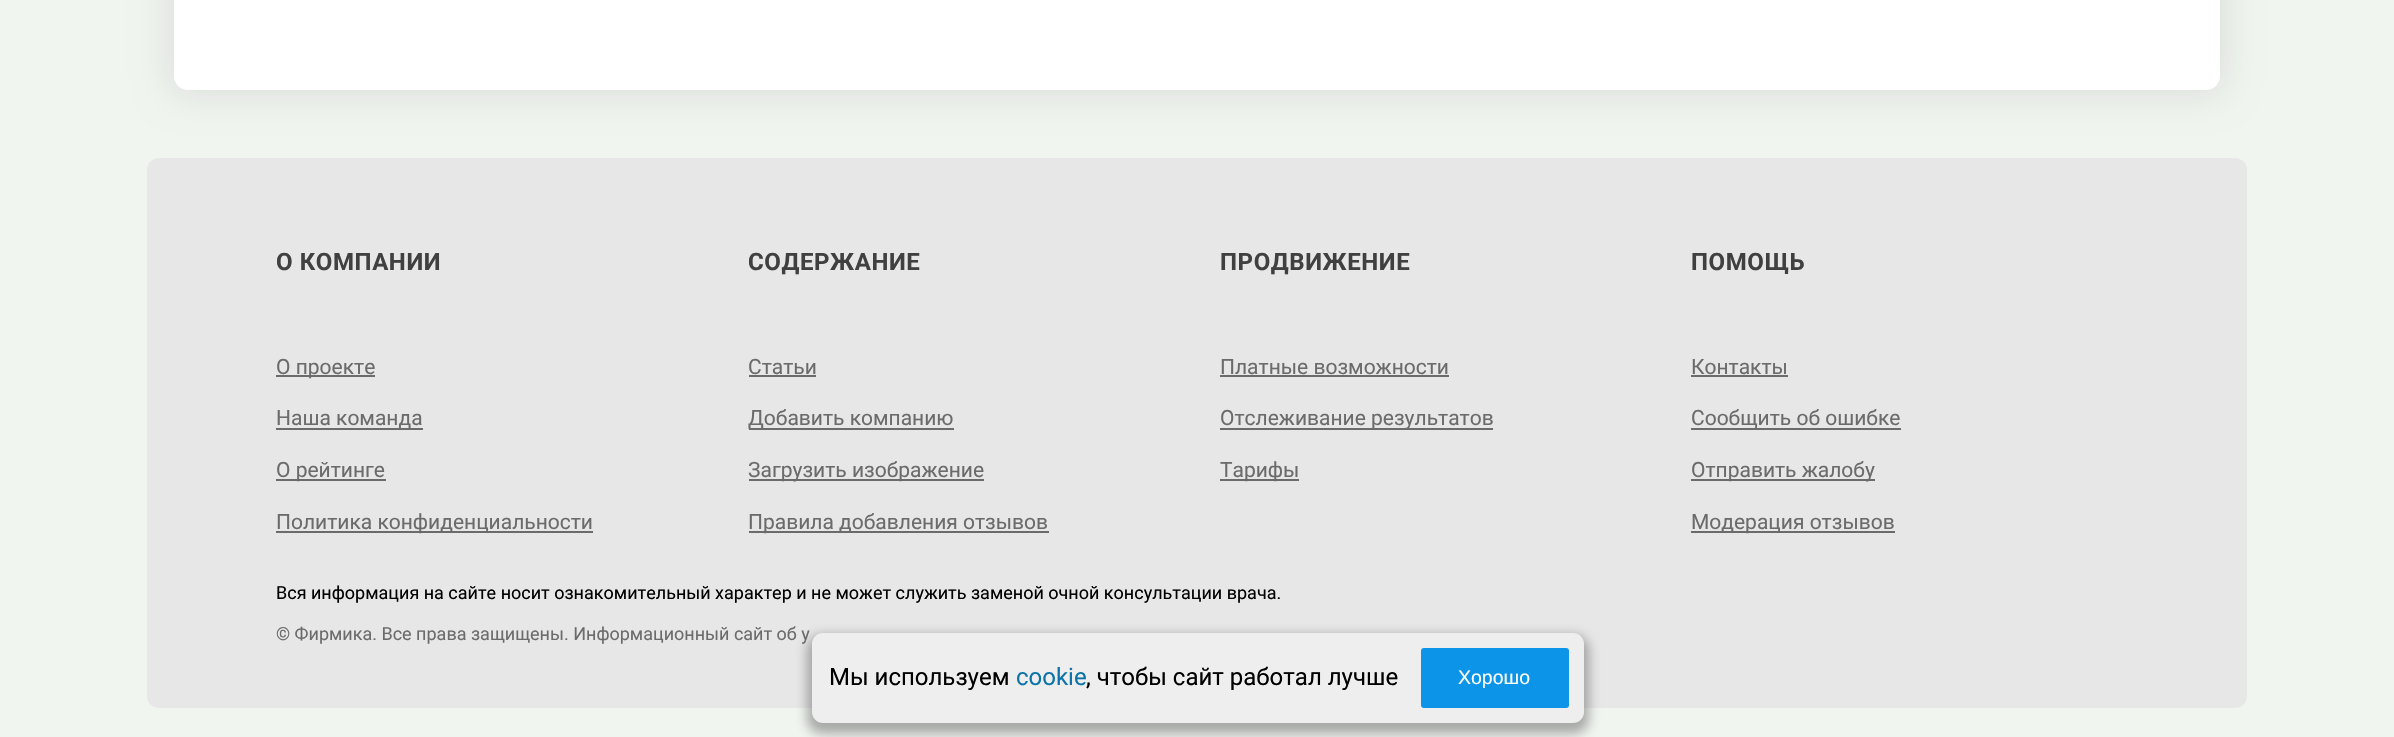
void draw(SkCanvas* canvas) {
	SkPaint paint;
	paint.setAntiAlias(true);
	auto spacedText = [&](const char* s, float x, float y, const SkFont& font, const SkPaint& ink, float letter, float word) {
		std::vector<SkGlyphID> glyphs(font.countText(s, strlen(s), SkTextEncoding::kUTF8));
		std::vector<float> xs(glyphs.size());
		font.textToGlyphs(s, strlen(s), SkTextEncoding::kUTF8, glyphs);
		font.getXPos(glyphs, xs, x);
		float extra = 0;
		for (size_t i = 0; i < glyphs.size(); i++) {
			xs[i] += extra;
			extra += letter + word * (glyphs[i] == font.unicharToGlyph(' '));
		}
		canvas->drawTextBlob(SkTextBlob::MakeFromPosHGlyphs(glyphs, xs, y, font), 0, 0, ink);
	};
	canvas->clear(0xfff1f5f0);
	paint.setColor(0x1a000000);
	paint.setMaskFilter(SkMaskFilter::MakeBlur(kNormal_SkBlurStyle, 18));
	canvas->drawRoundRect(SkRect::MakeXYWH(171, -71, 2052, 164), 17, 17, paint);
	paint.setMaskFilter(nullptr);
	paint.setColor(0xffffffff);
	canvas->drawRoundRect(SkRect::MakeXYWH(174, -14, 2046, 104), 14, 14, paint);
	paint.setColor(0xffe7e7e7);
	canvas->drawRoundRect(SkRect::MakeXYWH(147, 158, 2100, 550), 12, 12, paint);
	SkFont f1(fontMgr->matchFamilyStyle("Roboto", SkFontStyle::Bold()), 24);
	f1.setSubpixel(true);
	paint.setColor(0xff404040);
	spacedText("О КОМПАНИИ", 276, 270, f1, paint, 0.6, 0);
	paint.setColor(0xff6b6b6b);
	canvas->drawRect(SkRect::MakeXYWH(276, 375, 99, 2), paint);
	SkFont f2(fontMgr->matchFamilyStyle("Roboto", SkFontStyle::Normal()), 21);
	f2.setSubpixel(true);
	canvas->drawString("О проекте", 276, 374, f2, paint);
	canvas->drawRect(SkRect::MakeXYWH(276, 428, 147, 2), paint);
	canvas->drawString("Наша команда", 276, 425, f2, paint);
	canvas->drawRect(SkRect::MakeXYWH(276, 479, 110, 2), paint);
	canvas->drawString("О рейтинге", 276, 477, f2, paint);
	canvas->drawRect(SkRect::MakeXYWH(276, 531, 317, 2), paint);
	canvas->drawString("Политика конфиденциальности", 276, 529, f2, paint);
	paint.setColor(0xff404040);
	spacedText("СОДЕРЖАНИЕ", 748, 270, f1, paint, 0.6, 0);
	paint.setColor(0xff6b6b6b);
	canvas->drawString("Статьи", 748, 374, f2, paint);
	canvas->drawRect(SkRect::MakeXYWH(749, 375, 67, 2), paint);
	canvas->drawRect(SkRect::MakeXYWH(749, 428, 205, 2), paint);
	canvas->drawString("Добавить компанию", 748, 425, f2, paint);
	canvas->drawRect(SkRect::MakeXYWH(749, 479, 235, 2), paint);
	canvas->drawString("Загрузить изображение", 748, 477, f2, paint);
	canvas->drawRect(SkRect::MakeXYWH(749, 531, 300, 2), paint);
	canvas->drawString("Правила добавления отзывов", 748, 529, f2, paint);
	paint.setColor(0xff404040);
	spacedText("ПРОДВИЖЕНИЕ", 1220, 270, f1, paint, 0.6, 0);
	paint.setColor(0xff6b6b6b);
	canvas->drawString("Платные возможности", 1220, 374, f2, paint);
	canvas->drawRect(SkRect::MakeXYWH(1220, 375, 229, 2), paint);
	canvas->drawRect(SkRect::MakeXYWH(1220, 428, 273, 2), paint);
	canvas->drawString("Отслеживание результатов", 1220, 425, f2, paint);
	canvas->drawRect(SkRect::MakeXYWH(1220, 479, 79, 2), paint);
	canvas->drawString("Тарифы", 1220, 477, f2, paint);
	paint.setColor(0xff404040);
	spacedText("ПОМОЩЬ", 1691, 270, f1, paint, 0.6, 0);
	paint.setColor(0xff6b6b6b);
	canvas->drawString("Контакты", 1691, 374, f2, paint);
	canvas->drawRect(SkRect::MakeXYWH(1691, 375, 97, 2), paint);
	canvas->drawRect(SkRect::MakeXYWH(1691, 428, 210, 2), paint);
	canvas->drawString("Сообщить об ошибке", 1691, 425, f2, paint);
	canvas->drawRect(SkRect::MakeXYWH(1691, 479, 184, 2), paint);
	canvas->drawString("Отправить жалобу", 1691, 477, f2, paint);
	canvas->drawRect(SkRect::MakeXYWH(1691, 531, 204, 2), paint);
	canvas->drawString("Модерация отзывов", 1691, 529, f2, paint);
	SkFont f3(fontMgr->matchFamilyStyle("Roboto", SkFontStyle::Normal()), 18);
	f3.setSubpixel(true);
	paint.setColor(0xff000000);
	canvas->drawString("Вся информация на сайте носит ознакомительный характер и не может служить заменой очной консультации врача.", 276, 599, f3, paint);
	paint.setColor(0xff6b6b6b);
	canvas->drawString("© Фирмика. Все права защищены. Информационный сайт об у", 276, 640, f3, paint);
	paint.setColor(0x6b404040);
	paint.setMaskFilter(SkMaskFilter::MakeBlur(kNormal_SkBlurStyle, 6));
	canvas->drawRoundRect(SkRect::MakeXYWH(807, 635, 782, 99), 15, 15, paint);
	paint.setMaskFilter(nullptr);
	paint.setColor(0xffeeeeee);
	canvas->drawRoundRect(SkRect::MakeXYWH(812, 633, 772, 90), 11, 11, paint);
	SkFont f4(fontMgr->matchFamilyStyle("Roboto", SkFontStyle::Normal()), 24);
	f4.setSubpixel(true);
	paint.setColor(0xff000000);
	canvas->drawString("Мы используем", 829, 685, f4, paint);
	paint.setColor(0xff0c74a9);
	canvas->drawString("cookie", 1016, 685, f4, paint);
	paint.setColor(0xff000000);
	canvas->drawString(", чтобы сайт работал лучше", 1086, 685, f4, paint);
	paint.setColor(0xff0c94e8);
	canvas->drawRoundRect(SkRect::MakeXYWH(1421, 648, 148, 60), 3, 3, paint);
	SkFont f5(fontMgr->matchFamilyStyle("Liberation Sans", SkFontStyle::Normal()), 19.5);
	f5.setSubpixel(true);
	paint.setColor(0xffffffff);
	canvas->drawString("Хорошо", 1458, 684, f5, paint);
}
